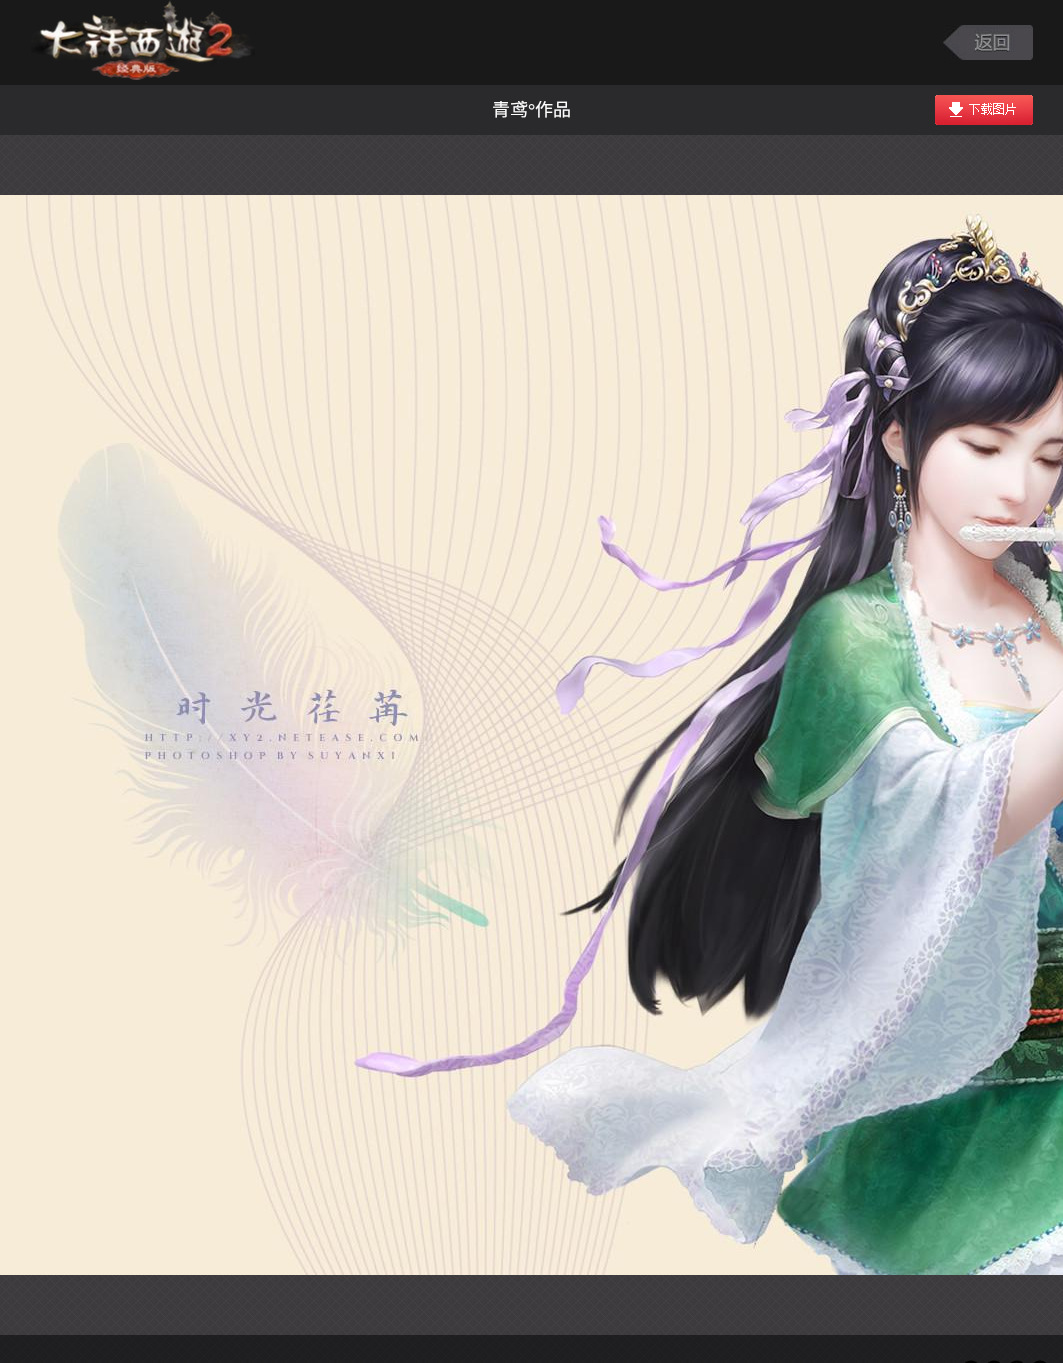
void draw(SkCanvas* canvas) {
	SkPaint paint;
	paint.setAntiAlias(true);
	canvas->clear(0xff191919);
	canvas->drawImageRect(SkImages::DeferredFromEncodedData(SkData::MakeFromFileName("img1.png")), SkRect::MakeXYWH(31, 0, 224, 80), SkSamplingOptions());
	canvas->drawImageRect(SkImages::DeferredFromEncodedData(SkData::MakeFromFileName("img2.png")), SkRect::MakeXYWH(943, 25, 90, 35), SkSamplingOptions());
	paint.setColor(0xff2a292b);
	canvas->drawRect(SkRect::MakeXYWH(0, 85, 1063, 50), paint);
	SkFont f1(fontMgr->matchFamilyStyle("Noto Sans CJK SC", SkFontStyle::Normal()), 18);
	f1.setSubpixel(true);
	paint.setColor(0xffffffff);
	canvas->drawString("青鸢", 492, 116, f1, paint);
	SkFont f2(fontMgr->matchFamilyStyle("Liberation Serif", SkFontStyle::Normal()), 18);
	f2.setSubpixel(true);
	canvas->drawString("°", 528, 116, f2, paint);
	canvas->drawString("作品", 535, 116, f1, paint);
	canvas->drawImageRect(SkImages::DeferredFromEncodedData(SkData::MakeFromFileName("img3.png")), SkRect::MakeXYWH(935, 95, 98, 30), SkSamplingOptions());
	canvas->drawImageRect(SkImages::DeferredFromEncodedData(SkData::MakeFromFileName("img4.png")), SkRect::MakeXYWH(0, 135, 1063, 1228), SkSamplingOptions());
	canvas->drawImageRect(SkImages::DeferredFromEncodedData(SkData::MakeFromFileName("img5.png")), SkRect::MakeXYWH(0, 195, 1063, 1080), SkSamplingOptions());
	paint.setColor(0x80000000);
	canvas->drawRect(SkRect::MakeXYWH(0, 1335, 1063, 28), paint);
	canvas->drawImageRect(SkImages::DeferredFromEncodedData(SkData::MakeFromFileName("img6.png")), SkRect::MakeXYWH(965, 1360, 12, 3), SkSamplingOptions());
	canvas->drawImageRect(SkImages::DeferredFromEncodedData(SkData::MakeFromFileName("img7.png")), SkRect::MakeXYWH(988, 1360, 12, 3), SkSamplingOptions());
	canvas->drawImageRect(SkImages::DeferredFromEncodedData(SkData::MakeFromFileName("img8.png")), SkRect::MakeXYWH(1011, 1360, 12, 3), SkSamplingOptions());
	canvas->drawImageRect(SkImages::DeferredFromEncodedData(SkData::MakeFromFileName("img9.png")), SkRect::MakeXYWH(1034, 1360, 12, 3), SkSamplingOptions());
}
